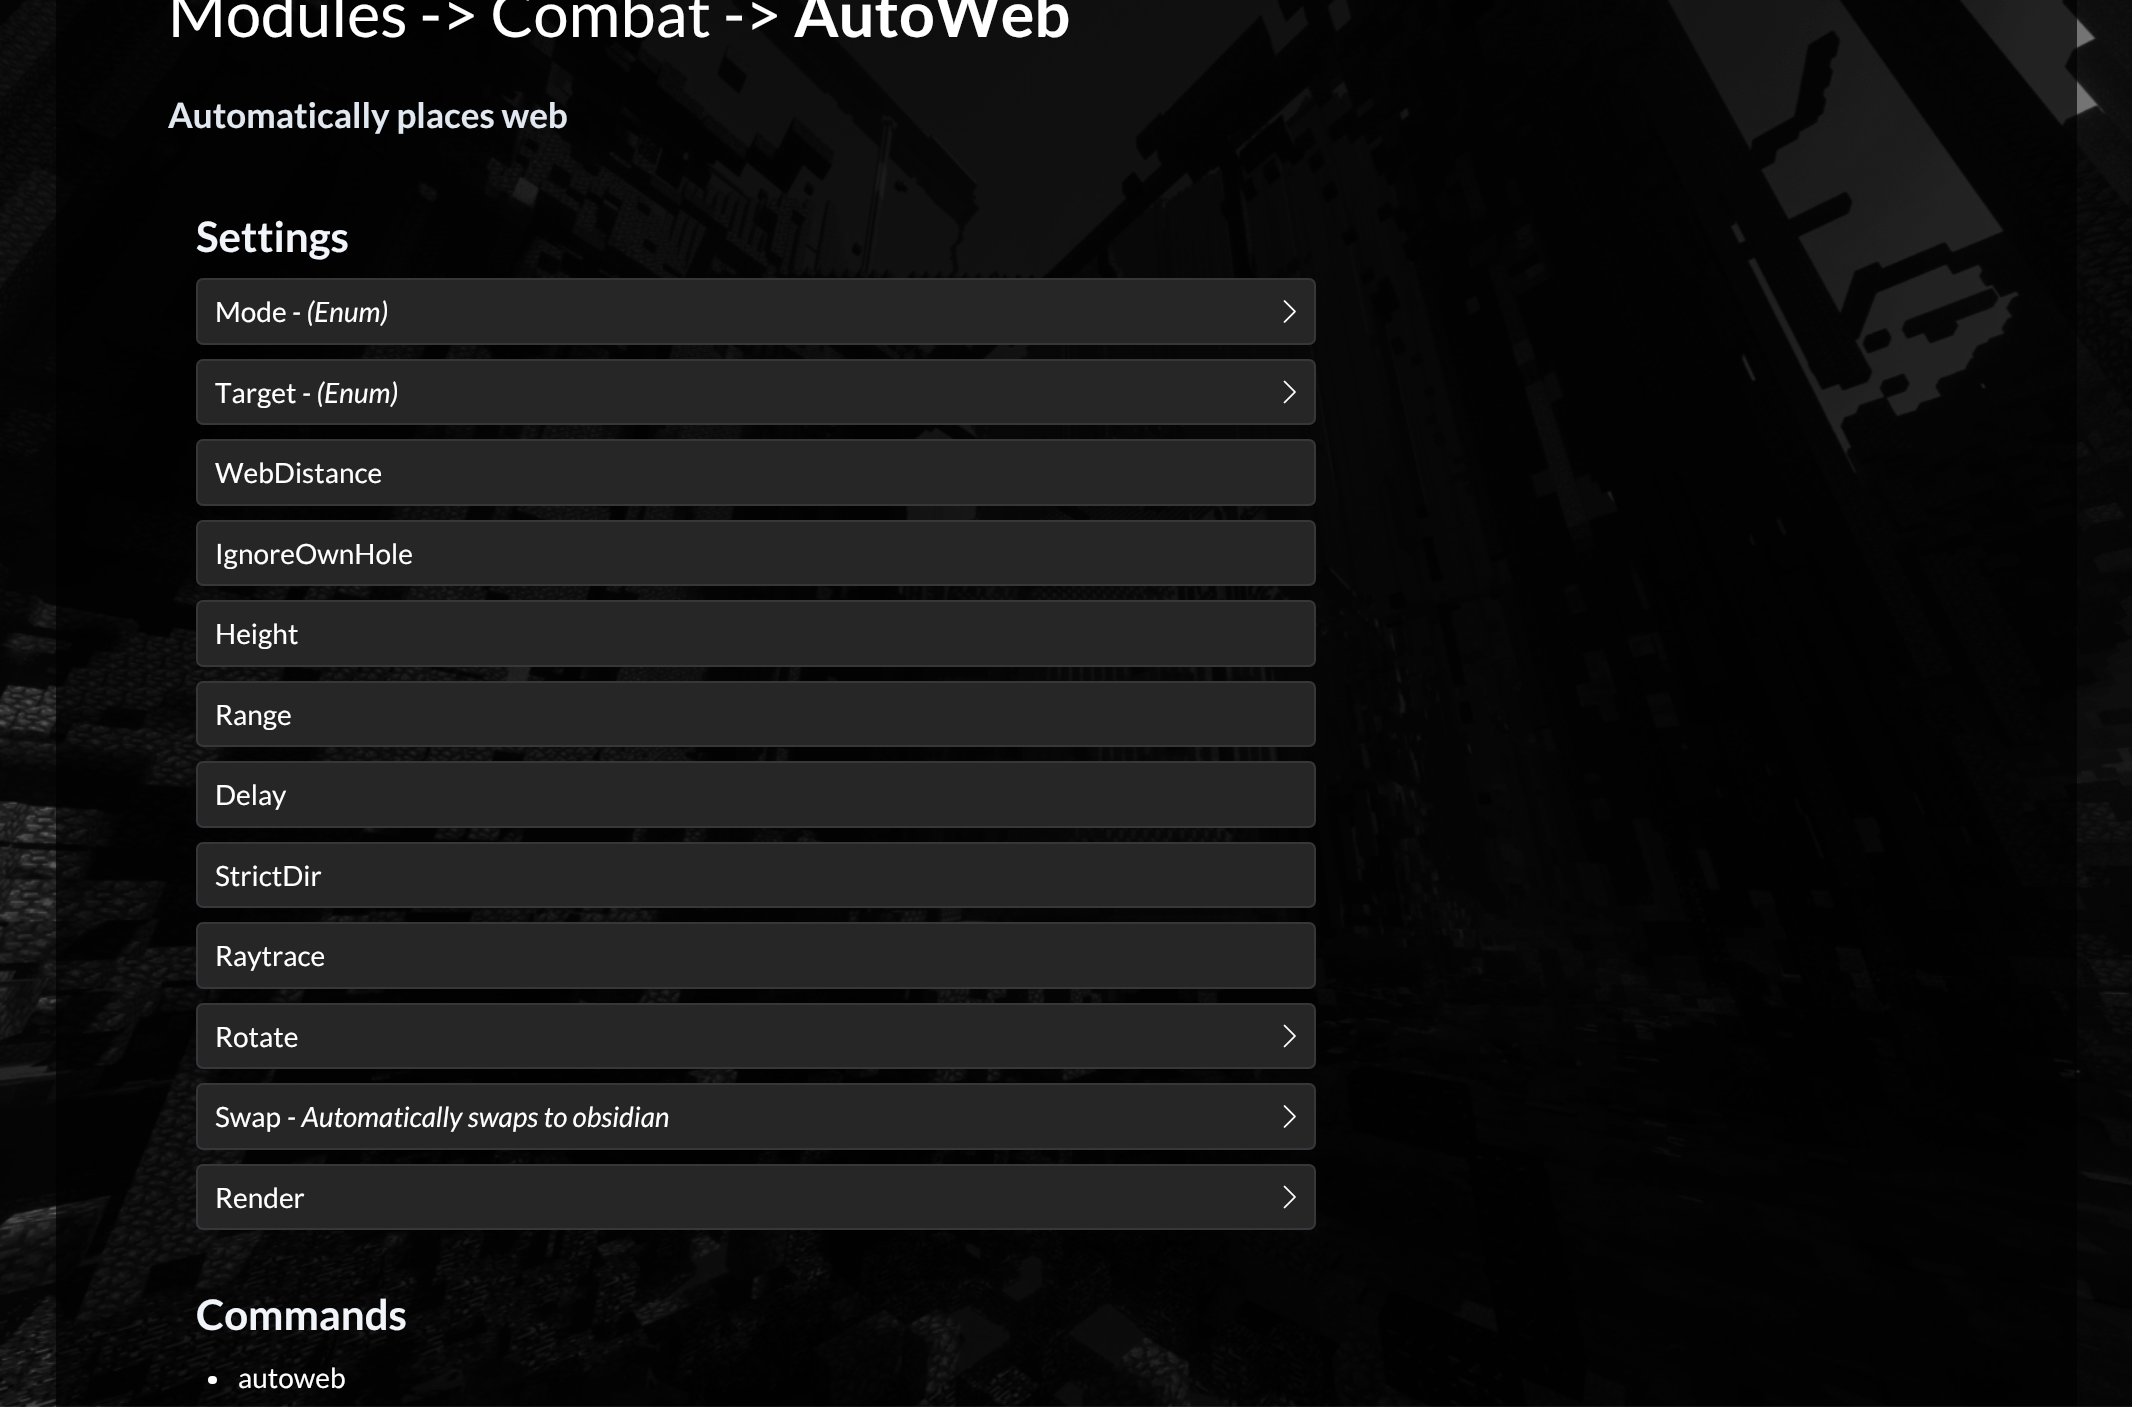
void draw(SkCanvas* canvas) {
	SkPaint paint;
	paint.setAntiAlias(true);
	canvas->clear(0xffffffff);
	canvas->drawImageRect(SkImages::DeferredFromEncodedData(SkData::MakeFromFileName("img1.png")), SkRect::MakeXYWH(0, 0, 2132, 1407), SkSamplingOptions());
	SkFont f1(fontMgr->matchFamilyStyle("Lato", SkFontStyle::Normal()), 63);
	f1.setSubpixel(true);
	paint.setColor(0xffffffff);
	canvas->drawString("Modules -> Combat ->", 168, 37, f1, paint);
	SkFont f2(fontMgr->matchFamilyStyle("Lato", SkFontStyle::Bold()), 63);
	f2.setSubpixel(true);
	canvas->drawString("AutoWeb", 794, 37, f2, paint);
	SkFont f3(fontMgr->matchFamilyStyle("Lato", SkFontStyle::Bold()), 35);
	f3.setSubpixel(true);
	paint.setColor(0xffe2e8f0);
	canvas->drawString("Automatically places web", 168, 128, f3, paint);
	SkFont f4(fontMgr->matchFamilyStyle("Lato", SkFontStyle::Bold()), 42);
	f4.setSubpixel(true);
	paint.setColor(0xfff1f5f9);
	canvas->drawString("Settings", 196, 252, f4, paint);
	paint.setColor(0xff262626);
	canvas->drawRoundRect(SkRect::MakeXYWH(197, 279, 1118, 65), 6, 6, paint);
	paint.setStroke(true);
	paint.setStrokeWidth(2);
	paint.setColor(0xff36363b);
	canvas->drawRoundRect(SkRect::MakeXYWH(197, 279, 1118, 65), 6, 6, paint);
	SkFont f5(fontMgr->matchFamilyStyle("Lato", SkFontStyle::Normal()), 28);
	f5.setSubpixel(true);
	paint.setStroke(false);
	paint.setColor(0xffffffff);
	canvas->drawString("Mode", 215, 322, f5, paint);
	SkFont f6(fontMgr->matchFamilyStyle("Lato", SkFontStyle::Italic()), 28);
	f6.setSubpixel(true);
	canvas->drawString("- (Enum)", 292, 322, f6, paint);
	canvas->drawImageRect(SkImages::DeferredFromEncodedData(SkData::MakeFromFileName("img2.png")), SkRect::MakeXYWH(1283, 300, 13, 23), SkSamplingOptions());
	paint.setColor(0xff262626);
	canvas->drawRoundRect(SkRect::MakeXYWH(197, 360, 1118, 64), 6, 6, paint);
	paint.setStroke(true);
	paint.setColor(0xff36363b);
	canvas->drawRoundRect(SkRect::MakeXYWH(197, 360, 1118, 64), 6, 6, paint);
	paint.setStroke(false);
	paint.setColor(0xffffffff);
	canvas->drawString("Target", 215, 403, f5, paint);
	canvas->drawString("- (Enum)", 302, 403, f6, paint);
	canvas->drawImageRect(SkImages::DeferredFromEncodedData(SkData::MakeFromFileName("img3.png")), SkRect::MakeXYWH(1283, 380, 13, 24), SkSamplingOptions());
	paint.setColor(0xff262626);
	canvas->drawRoundRect(SkRect::MakeXYWH(197, 440, 1118, 65), 6, 6, paint);
	paint.setStroke(true);
	paint.setColor(0xff36363b);
	canvas->drawRoundRect(SkRect::MakeXYWH(197, 440, 1118, 65), 6, 6, paint);
	paint.setStroke(false);
	paint.setColor(0xffffffff);
	canvas->drawString("WebDistance", 215, 483, f5, paint);
	paint.setColor(0xff262626);
	canvas->drawRoundRect(SkRect::MakeXYWH(197, 521, 1118, 64), 6, 6, paint);
	paint.setStroke(true);
	paint.setColor(0xff36363b);
	canvas->drawRoundRect(SkRect::MakeXYWH(197, 521, 1118, 64), 6, 6, paint);
	paint.setStroke(false);
	paint.setColor(0xffffffff);
	canvas->drawString("IgnoreOwnHole", 215, 564, f5, paint);
	paint.setColor(0xff262626);
	canvas->drawRoundRect(SkRect::MakeXYWH(197, 601, 1118, 65), 6, 6, paint);
	paint.setStroke(true);
	paint.setColor(0xff36363b);
	canvas->drawRoundRect(SkRect::MakeXYWH(197, 601, 1118, 65), 6, 6, paint);
	paint.setStroke(false);
	paint.setColor(0xffffffff);
	canvas->drawString("Height", 215, 644, f5, paint);
	paint.setColor(0xff262626);
	canvas->drawRoundRect(SkRect::MakeXYWH(197, 682, 1118, 64), 6, 6, paint);
	paint.setStroke(true);
	paint.setColor(0xff36363b);
	canvas->drawRoundRect(SkRect::MakeXYWH(197, 682, 1118, 64), 6, 6, paint);
	paint.setStroke(false);
	paint.setColor(0xffffffff);
	canvas->drawString("Range", 215, 725, f5, paint);
	paint.setColor(0xff262626);
	canvas->drawRoundRect(SkRect::MakeXYWH(197, 762, 1118, 65), 6, 6, paint);
	paint.setStroke(true);
	paint.setColor(0xff36363b);
	canvas->drawRoundRect(SkRect::MakeXYWH(197, 762, 1118, 65), 6, 6, paint);
	paint.setStroke(false);
	paint.setColor(0xffffffff);
	canvas->drawString("Delay", 215, 805, f5, paint);
	paint.setColor(0xff262626);
	canvas->drawRoundRect(SkRect::MakeXYWH(197, 843, 1118, 64), 6, 6, paint);
	paint.setStroke(true);
	paint.setColor(0xff36363b);
	canvas->drawRoundRect(SkRect::MakeXYWH(197, 843, 1118, 64), 6, 6, paint);
	paint.setStroke(false);
	paint.setColor(0xffffffff);
	canvas->drawString("StrictDir", 215, 886, f5, paint);
	paint.setColor(0xff262626);
	canvas->drawRoundRect(SkRect::MakeXYWH(197, 923, 1118, 65), 6, 6, paint);
	paint.setStroke(true);
	paint.setColor(0xff36363b);
	canvas->drawRoundRect(SkRect::MakeXYWH(197, 923, 1118, 65), 6, 6, paint);
	paint.setStroke(false);
	paint.setColor(0xffffffff);
	canvas->drawString("Raytrace", 215, 966, f5, paint);
	paint.setColor(0xff262626);
	canvas->drawRoundRect(SkRect::MakeXYWH(197, 1004, 1118, 64), 6, 6, paint);
	paint.setStroke(true);
	paint.setColor(0xff36363b);
	canvas->drawRoundRect(SkRect::MakeXYWH(197, 1004, 1118, 64), 6, 6, paint);
	paint.setStroke(false);
	paint.setColor(0xffffffff);
	canvas->drawString("Rotate", 215, 1047, f5, paint);
	canvas->drawImageRect(SkImages::DeferredFromEncodedData(SkData::MakeFromFileName("img3.png")), SkRect::MakeXYWH(1283, 1024, 13, 24), SkSamplingOptions());
	paint.setColor(0xff262626);
	canvas->drawRoundRect(SkRect::MakeXYWH(197, 1084, 1118, 65), 6, 6, paint);
	paint.setStroke(true);
	paint.setColor(0xff36363b);
	canvas->drawRoundRect(SkRect::MakeXYWH(197, 1084, 1118, 65), 6, 6, paint);
	paint.setStroke(false);
	paint.setColor(0xffffffff);
	canvas->drawString("Swap", 215, 1127, f5, paint);
	canvas->drawString("- Automatically swaps to obsidian", 287, 1127, f6, paint);
	canvas->drawImageRect(SkImages::DeferredFromEncodedData(SkData::MakeFromFileName("img2.png")), SkRect::MakeXYWH(1283, 1105, 13, 23), SkSamplingOptions());
	paint.setColor(0xff262626);
	canvas->drawRoundRect(SkRect::MakeXYWH(197, 1165, 1118, 64), 6, 6, paint);
	paint.setStroke(true);
	paint.setColor(0xff36363b);
	canvas->drawRoundRect(SkRect::MakeXYWH(197, 1165, 1118, 64), 6, 6, paint);
	paint.setStroke(false);
	paint.setColor(0xffffffff);
	canvas->drawString("Render", 215, 1208, f5, paint);
	canvas->drawImageRect(SkImages::DeferredFromEncodedData(SkData::MakeFromFileName("img3.png")), SkRect::MakeXYWH(1283, 1185, 13, 24), SkSamplingOptions());
	paint.setColor(0xfff1f5f9);
	canvas->drawString("Commands", 196, 1330, f4, paint);
	paint.setColor(0xffffffff);
	canvas->drawRoundRect(SkRect::MakeXYWH(208, 1376, 9, 8), 4, 4, paint);
	canvas->drawString("autoweb", 238, 1388, f5, paint);
}
